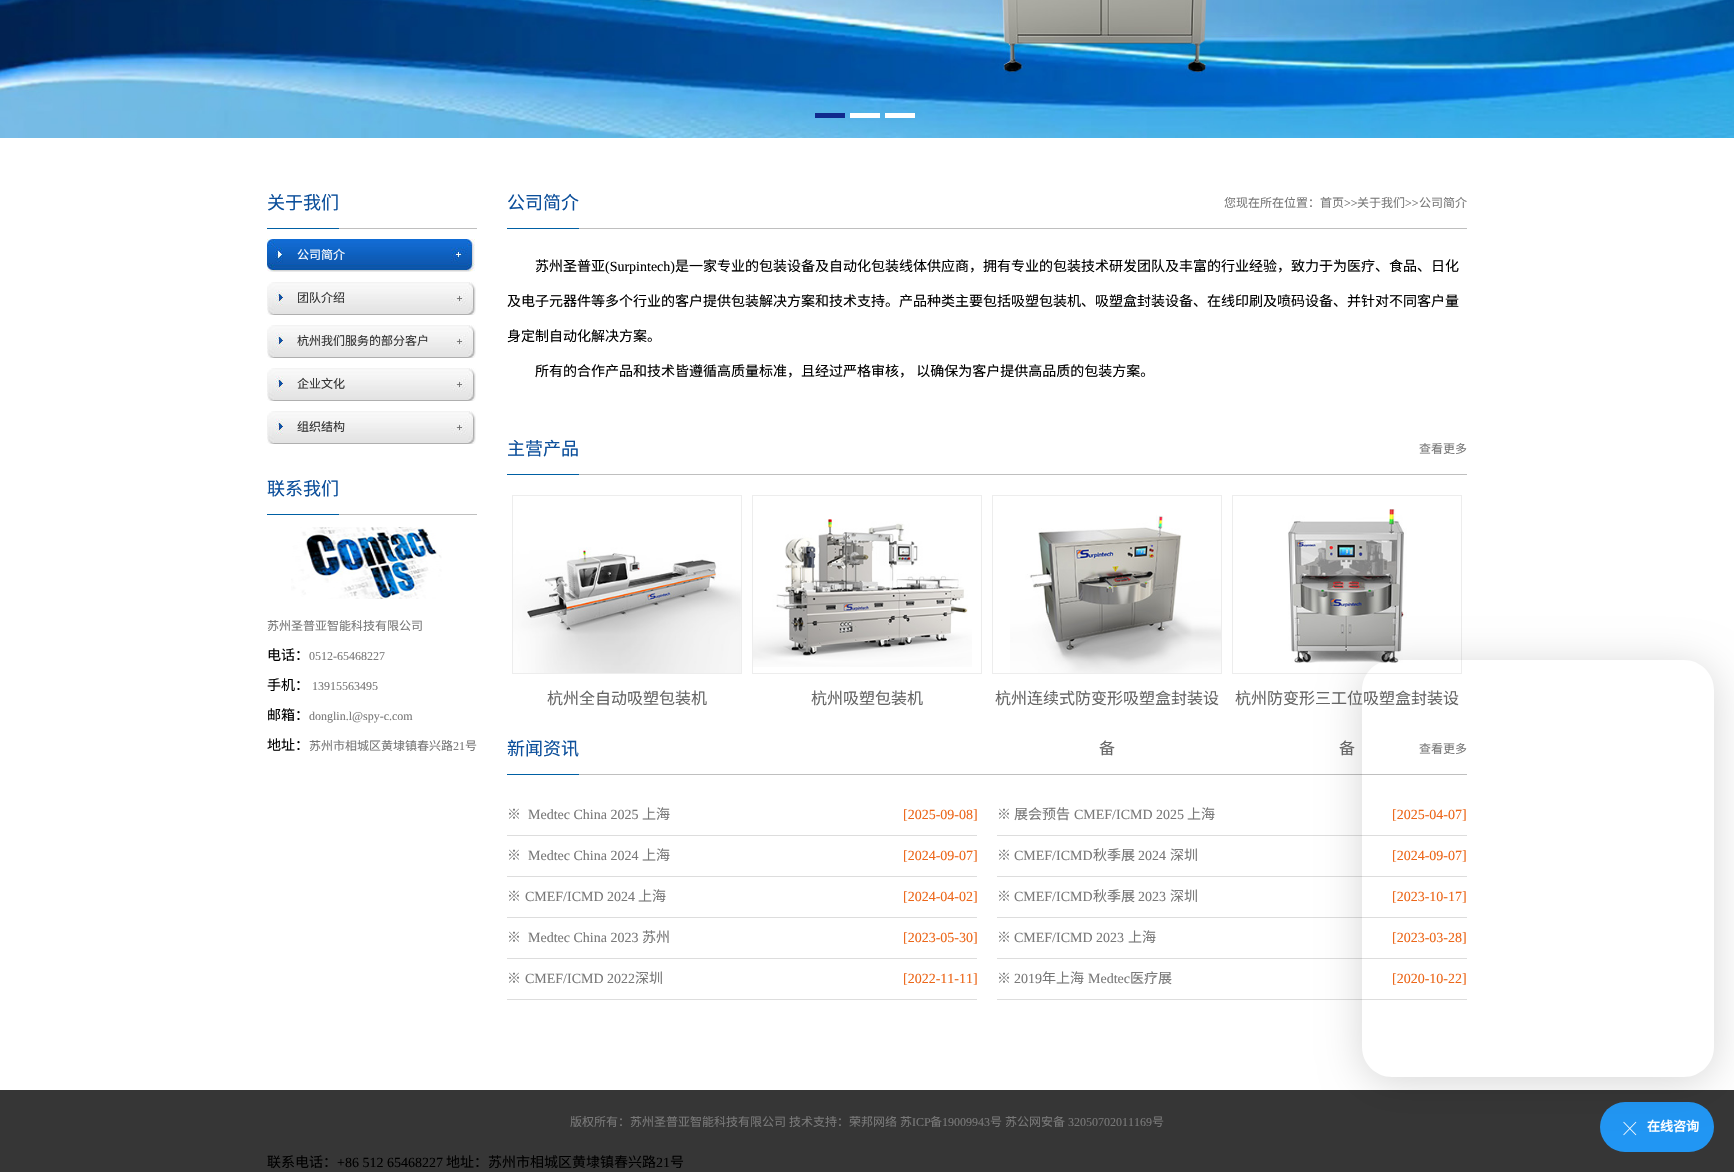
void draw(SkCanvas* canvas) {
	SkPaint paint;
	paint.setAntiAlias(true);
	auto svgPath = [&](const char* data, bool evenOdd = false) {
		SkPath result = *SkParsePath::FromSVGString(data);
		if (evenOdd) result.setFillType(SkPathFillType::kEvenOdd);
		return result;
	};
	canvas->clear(0xffffffff);
	canvas->drawImageRect(SkImages::DeferredFromEncodedData(SkData::MakeFromFileName("img1.png")), SkRect::MakeXYWH(0, 0, 1734, 138), SkSamplingOptions());
	paint.setColor(0xff102a8d);
	canvas->drawRect(SkRect::MakeXYWH(815, 113, 30, 5), paint);
	paint.setColor(0xffffffff);
	canvas->drawRect(SkRect::MakeXYWH(850, 113, 30, 5), paint);
	canvas->drawRect(SkRect::MakeXYWH(885, 113, 30, 5), paint);
	paint.setColor(0xffbfbfbf);
	canvas->drawRect(SkRect::MakeXYWH(339, 228, 138, 1), paint);
	paint.setColor(0xff0060a4);
	canvas->drawRect(SkRect::MakeXYWH(267, 228, 72, 1), paint);
	SkFont f1(fontMgr->matchFamilyStyle("Noto Sans CJK SC", SkFontStyle::Normal()), 18);
	f1.setSubpixel(true);
	paint.setColor(0xff0c4f9b);
	canvas->drawString("关于我们", 267, 209, f1, paint);
	canvas->drawImageRect(SkImages::DeferredFromEncodedData(SkData::MakeFromFileName("img2.png")), SkRect::MakeXYWH(267, 239, 208, 33), SkSamplingOptions());
	SkFont f2(fontMgr->matchFamilyStyle("Noto Sans CJK SC", SkFontStyle::Normal()), 12);
	f2.setSubpixel(true);
	paint.setColor(0xffffffff);
	canvas->drawString("公司简介", 297, 259, f2, paint);
	canvas->drawImageRect(SkImages::DeferredFromEncodedData(SkData::MakeFromFileName("img3.png")), SkRect::MakeXYWH(267, 282, 209, 33), SkSamplingOptions());
	paint.setColor(0xff333333);
	canvas->drawString("团队介绍", 297, 302, f2, paint);
	canvas->drawImageRect(SkImages::DeferredFromEncodedData(SkData::MakeFromFileName("img3.png")), SkRect::MakeXYWH(267, 325, 209, 33), SkSamplingOptions());
	canvas->drawString("杭州我们服务的部分客户", 297, 345, f2, paint);
	canvas->drawImageRect(SkImages::DeferredFromEncodedData(SkData::MakeFromFileName("img3.png")), SkRect::MakeXYWH(267, 368, 209, 33), SkSamplingOptions());
	canvas->drawString("企业文化", 297, 388, f2, paint);
	canvas->drawImageRect(SkImages::DeferredFromEncodedData(SkData::MakeFromFileName("img3.png")), SkRect::MakeXYWH(267, 411, 209, 33), SkSamplingOptions());
	canvas->drawString("组织结构", 297, 431, f2, paint);
	paint.setColor(0xffbfbfbf);
	canvas->drawRect(SkRect::MakeXYWH(339, 514, 138, 1), paint);
	paint.setColor(0xff0060a4);
	canvas->drawRect(SkRect::MakeXYWH(267, 514, 72, 1), paint);
	paint.setColor(0xff0c4f9b);
	canvas->drawString("联系我们", 267, 495, f1, paint);
	canvas->drawImageRect(SkImages::DeferredFromEncodedData(SkData::MakeFromFileName("img4.png")), SkRect::MakeXYWH(291, 527, 151, 72), SkSamplingOptions());
	paint.setColor(0xff787878);
	canvas->drawString("苏州圣普亚智能科技有限公司", 267, 630, f2, paint);
	SkFont f3(fontMgr->matchFamilyStyle("Noto Sans CJK SC", SkFontStyle::Normal()), 14);
	f3.setSubpixel(true);
	paint.setColor(0xff000000);
	canvas->drawString("电话：", 267, 660, f3, paint);
	SkFont f4(fontMgr->matchFamilyStyle("Liberation Serif", SkFontStyle::Normal()), 12);
	f4.setSubpixel(true);
	paint.setColor(0xff787878);
	canvas->drawString("0512-65468227", 309, 660, f4, paint);
	paint.setColor(0xff000000);
	canvas->drawString("手机：", 267, 690, f3, paint);
	paint.setColor(0xff787878);
	canvas->drawString("13915563495", 312, 690, f4, paint);
	paint.setColor(0xff000000);
	canvas->drawString("邮箱：", 267, 720, f3, paint);
	paint.setColor(0xff787878);
	canvas->drawString("donglin.l@spy-c.com", 309, 720, f4, paint);
	paint.setColor(0xff000000);
	canvas->drawString("地址：", 267, 750, f3, paint);
	paint.setColor(0xff787878);
	canvas->drawString("苏州市相城区黄埭镇春兴路", 309, 750, f2, paint);
	canvas->drawString("21", 453, 750, f4, paint);
	canvas->drawString("号", 465, 750, f2, paint);
	paint.setColor(0xffbfbfbf);
	canvas->drawRect(SkRect::MakeXYWH(579, 228, 888, 1), paint);
	paint.setColor(0xff0060a4);
	canvas->drawRect(SkRect::MakeXYWH(507, 228, 72, 1), paint);
	paint.setColor(0xff0c4f9b);
	canvas->drawString("公司简介", 507, 209, f1, paint);
	paint.setColor(0xff787878);
	canvas->drawString("您现在所在位置：首页", 1224, 207, f2, paint);
	canvas->drawString(">>", 1344, 207, f4, paint);
	canvas->drawString("关于我们", 1357, 207, f2, paint);
	canvas->drawString(">>", 1405, 207, f4, paint);
	canvas->drawString("公司简介", 1419, 207, f2, paint);
	paint.setColor(0xff000000);
	canvas->drawString("苏州圣普亚", 535, 271, f3, paint);
	SkFont f5(fontMgr->matchFamilyStyle("Liberation Serif", SkFontStyle::Normal()), 14);
	f5.setSubpixel(true);
	canvas->drawString("(Surpintech)", 605, 271, f5, paint);
	canvas->drawString("是一家专业的包装设备及自动化包装线体供应商，拥有专业的包装技术研发团队及丰富的行业经验，致力于为医疗、食品、日化", 675, 271, f3, paint);
	canvas->drawString("及电子元器件等多个行业的客户提供包装解决方案和技术支持。产品种类主要包括吸塑包装机、吸塑盒封装设备、在线印刷及喷码设备、并针对不同客户量", 507, 306, f3, paint);
	canvas->drawString("身定制自动化解决方案。", 507, 341, f3, paint);
	canvas->drawString("所有的合作产品和技术皆遵循高质量标准，且经过严格审核， 以确保为客户提供高品质的包装方案。", 535, 376, f3, paint);
	paint.setColor(0xffbfbfbf);
	canvas->drawRect(SkRect::MakeXYWH(579, 474, 888, 1), paint);
	paint.setColor(0xff0060a4);
	canvas->drawRect(SkRect::MakeXYWH(507, 474, 72, 1), paint);
	paint.setColor(0xff0c4f9b);
	canvas->drawString("主营产品", 507, 455, f1, paint);
	paint.setColor(0xff787878);
	canvas->drawString("查看更多", 1419, 453, f2, paint);
	paint.setStroke(true);
	paint.setStrokeWidth(1);
	paint.setColor(0xffededed);
	canvas->drawRect(SkRect::MakeXYWH(512.5, 495.5, 229, 178), paint);
	canvas->drawImageRect(SkImages::DeferredFromEncodedData(SkData::MakeFromFileName("img5.png")), SkRect::MakeXYWH(513, 547, 228, 126), SkSamplingOptions());
	SkFont f6(fontMgr->matchFamilyStyle("Noto Sans CJK SC", SkFontStyle::Normal()), 16);
	f6.setSubpixel(true);
	paint.setStroke(false);
	paint.setColor(0xff666666);
	canvas->drawString("杭州全自动吸塑包装机", 547, 704, f6, paint);
	paint.setStroke(true);
	paint.setColor(0xffededed);
	canvas->drawRect(SkRect::MakeXYWH(752.5, 495.5, 229, 178), paint);
	canvas->drawImageRect(SkImages::DeferredFromEncodedData(SkData::MakeFromFileName("img6.png")), SkRect::MakeXYWH(753, 519, 219, 148), SkSamplingOptions());
	paint.setStroke(false);
	paint.setColor(0xff666666);
	canvas->drawString("杭州吸塑包装机", 811, 704, f6, paint);
	paint.setStroke(true);
	paint.setColor(0xffededed);
	canvas->drawRect(SkRect::MakeXYWH(992.5, 495.5, 229, 178), paint);
	canvas->drawImageRect(SkImages::DeferredFromEncodedData(SkData::MakeFromFileName("img7.png")), SkRect::MakeXYWH(1010, 515, 211, 158), SkSamplingOptions());
	paint.setStroke(false);
	paint.setColor(0xff666666);
	canvas->drawString("杭州连续式防变形吸塑盒封装设", 995, 704, f6, paint);
	canvas->drawString("备", 1099, 754, f6, paint);
	paint.setStroke(true);
	paint.setColor(0xffededed);
	canvas->drawRect(SkRect::MakeXYWH(1232.5, 495.5, 229, 178), paint);
	canvas->drawImageRect(SkImages::DeferredFromEncodedData(SkData::MakeFromFileName("img8.png")), SkRect::MakeXYWH(1288, 509, 119, 154), SkSamplingOptions());
	paint.setStroke(false);
	paint.setColor(0xff666666);
	canvas->drawString("杭州防变形三工位吸塑盒封装设", 1235, 704, f6, paint);
	canvas->drawString("备", 1339, 754, f6, paint);
	paint.setColor(0xffbfbfbf);
	canvas->drawRect(SkRect::MakeXYWH(579, 774, 888, 1), paint);
	paint.setColor(0xff0060a4);
	canvas->drawRect(SkRect::MakeXYWH(507, 774, 72, 1), paint);
	paint.setColor(0xff0c4f9b);
	canvas->drawString("新闻资讯", 507, 755, f1, paint);
	paint.setColor(0xff787878);
	canvas->drawString("查看更多", 1419, 753, f2, paint);
	paint.setColor(0xffdddddd);
	canvas->drawRect(SkRect::MakeXYWH(507, 835, 470, 1), paint);
	paint.setColor(0xff787878);
	canvas->drawString("※", 507, 819, f3, paint);
	canvas->drawString("Medtec China 2025", 528, 819, f5, paint);
	canvas->drawString("上海", 642, 819, f3, paint);
	paint.setColor(0xffec6618);
	canvas->drawString("[2025-09-08]", 903, 819, f5, paint);
	paint.setColor(0xffdddddd);
	canvas->drawRect(SkRect::MakeXYWH(997, 835, 470, 1), paint);
	paint.setColor(0xff787878);
	canvas->drawString("※", 997, 819, f3, paint);
	canvas->drawString("展会预告", 1014, 819, f3, paint);
	canvas->drawString("CMEF/ICMD 2025", 1074, 819, f5, paint);
	canvas->drawString("上海", 1187, 819, f3, paint);
	paint.setColor(0xffec6618);
	canvas->drawString("[2025-04-07]", 1392, 819, f5, paint);
	paint.setColor(0xffdddddd);
	canvas->drawRect(SkRect::MakeXYWH(507, 876, 470, 1), paint);
	paint.setColor(0xff787878);
	canvas->drawString("※", 507, 860, f3, paint);
	canvas->drawString("Medtec China 2024", 528, 860, f5, paint);
	canvas->drawString("上海", 642, 860, f3, paint);
	paint.setColor(0xffec6618);
	canvas->drawString("[2024-09-07]", 903, 860, f5, paint);
	paint.setColor(0xffdddddd);
	canvas->drawRect(SkRect::MakeXYWH(997, 876, 470, 1), paint);
	paint.setColor(0xff787878);
	canvas->drawString("※", 997, 860, f3, paint);
	canvas->drawString("CMEF/ICMD", 1014, 860, f5, paint);
	canvas->drawString("秋季展", 1093, 860, f3, paint);
	canvas->drawString("2024", 1138, 860, f5, paint);
	canvas->drawString("深圳", 1170, 860, f3, paint);
	paint.setColor(0xffec6618);
	canvas->drawString("[2024-09-07]", 1392, 860, f5, paint);
	paint.setColor(0xffdddddd);
	canvas->drawRect(SkRect::MakeXYWH(507, 917, 470, 1), paint);
	paint.setColor(0xff787878);
	canvas->drawString("※", 507, 901, f3, paint);
	canvas->drawString("CMEF/ICMD 2024", 525, 901, f5, paint);
	canvas->drawString("上海", 638, 901, f3, paint);
	paint.setColor(0xffec6618);
	canvas->drawString("[2024-04-02]", 903, 901, f5, paint);
	paint.setColor(0xffdddddd);
	canvas->drawRect(SkRect::MakeXYWH(997, 917, 470, 1), paint);
	paint.setColor(0xff787878);
	canvas->drawString("※", 997, 901, f3, paint);
	canvas->drawString("CMEF/ICMD", 1014, 901, f5, paint);
	canvas->drawString("秋季展", 1093, 901, f3, paint);
	canvas->drawString("2023", 1138, 901, f5, paint);
	canvas->drawString("深圳", 1170, 901, f3, paint);
	paint.setColor(0xffec6618);
	canvas->drawString("[2023-10-17]", 1392, 901, f5, paint);
	paint.setColor(0xffdddddd);
	canvas->drawRect(SkRect::MakeXYWH(507, 958, 470, 1), paint);
	paint.setColor(0xff787878);
	canvas->drawString("※", 507, 942, f3, paint);
	canvas->drawString("Medtec China 2023", 528, 942, f5, paint);
	canvas->drawString("苏州", 642, 942, f3, paint);
	paint.setColor(0xffec6618);
	canvas->drawString("[2023-05-30]", 903, 942, f5, paint);
	paint.setColor(0xffdddddd);
	canvas->drawRect(SkRect::MakeXYWH(997, 958, 470, 1), paint);
	paint.setColor(0xff787878);
	canvas->drawString("※", 997, 942, f3, paint);
	canvas->drawString("CMEF/ICMD 2023", 1014, 942, f5, paint);
	canvas->drawString("上海", 1128, 942, f3, paint);
	paint.setColor(0xffec6618);
	canvas->drawString("[2023-03-28]", 1392, 942, f5, paint);
	paint.setColor(0xffdddddd);
	canvas->drawRect(SkRect::MakeXYWH(507, 999, 470, 1), paint);
	paint.setColor(0xff787878);
	canvas->drawString("※", 507, 983, f3, paint);
	canvas->drawString("CMEF/ICMD 2022", 525, 983, f5, paint);
	canvas->drawString("深圳", 635, 983, f3, paint);
	paint.setColor(0xffec6618);
	canvas->drawString("[2022-11-11]", 903, 983, f5, paint);
	paint.setColor(0xffdddddd);
	canvas->drawRect(SkRect::MakeXYWH(997, 999, 470, 1), paint);
	paint.setColor(0xff787878);
	canvas->drawString("※", 997, 983, f3, paint);
	canvas->drawString("2019", 1014, 983, f5, paint);
	canvas->drawString("年上海", 1042, 983, f3, paint);
	canvas->drawString("Medtec", 1088, 983, f5, paint);
	canvas->drawString("医疗展", 1130, 983, f3, paint);
	paint.setColor(0xffec6618);
	canvas->drawString("[2020-10-22]", 1392, 983, f5, paint);
	paint.setColor(0xff363636);
	canvas->drawRect(SkRect::MakeXYWH(0, 1090, 1734, 82), paint);
	paint.setColor(0xff787878);
	canvas->drawString("版权所有：苏州圣普亚智能科技有限公司", 570, 1126, f2, paint);
	canvas->drawString("技术支持：荣邦网络", 789, 1126, f2, paint);
	canvas->drawString("苏", 900, 1126, f2, paint);
	canvas->drawString("ICP", 912, 1126, f4, paint);
	canvas->drawString("备", 930, 1126, f2, paint);
	canvas->drawString("19009943", 942, 1126, f4, paint);
	canvas->drawString("号", 990, 1126, f2, paint);
	canvas->drawString("苏公网安备", 1005, 1126, f2, paint);
	canvas->drawString("32050702011169", 1068, 1126, f4, paint);
	canvas->drawString("号", 1152, 1126, f2, paint);
	paint.setColor(0xff000000);
	canvas->drawString("联系电话：", 267, 1167, f3, paint);
	canvas->drawString("+86 512 65468227", 337, 1167, f5, paint);
	canvas->drawString("地址：苏州市相城区黄埭镇春兴路", 446, 1167, f3, paint);
	canvas->drawString("21", 656, 1167, f5, paint);
	canvas->drawString("号", 670, 1167, f3, paint);
	paint.setColor(0xff2196f3);
	canvas->drawRoundRect(SkRect::MakeXYWH(1600, 1102, 114, 50), 25, 25, paint);
	canvas->drawImageRect(SkImages::DeferredFromEncodedData(SkData::MakeFromFileName("img9.png")), SkRect::MakeXYWH(1623, 1121, 14, 15), SkSamplingOptions());
	canvas->save();
	canvas->clipPath(svgPath("M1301 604H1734V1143H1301ZM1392 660H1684C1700.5 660 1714 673.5 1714 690V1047C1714 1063.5 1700.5 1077 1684 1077H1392C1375.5 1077 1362 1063.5 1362 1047V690C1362 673.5 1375.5 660 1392 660Z", true), true);
	paint.setColor(0x29000000);
	paint.setMaskFilter(SkMaskFilter::MakeBlur(kNormal_SkBlurStyle, 20));
	canvas->drawRoundRect(SkRect::MakeXYWH(1362, 665, 352, 417), 30, 30, paint);
	paint.setMaskFilter(nullptr);
	canvas->restore();
	SkFont f7(fontMgr->matchFamilyStyle("Noto Sans CJK SC", SkFontStyle::Bold()), 13);
	f7.setSubpixel(true);
	paint.setColor(0xffffffff);
	canvas->drawString("在线咨询", 1647, 1131, f7, paint);
}
